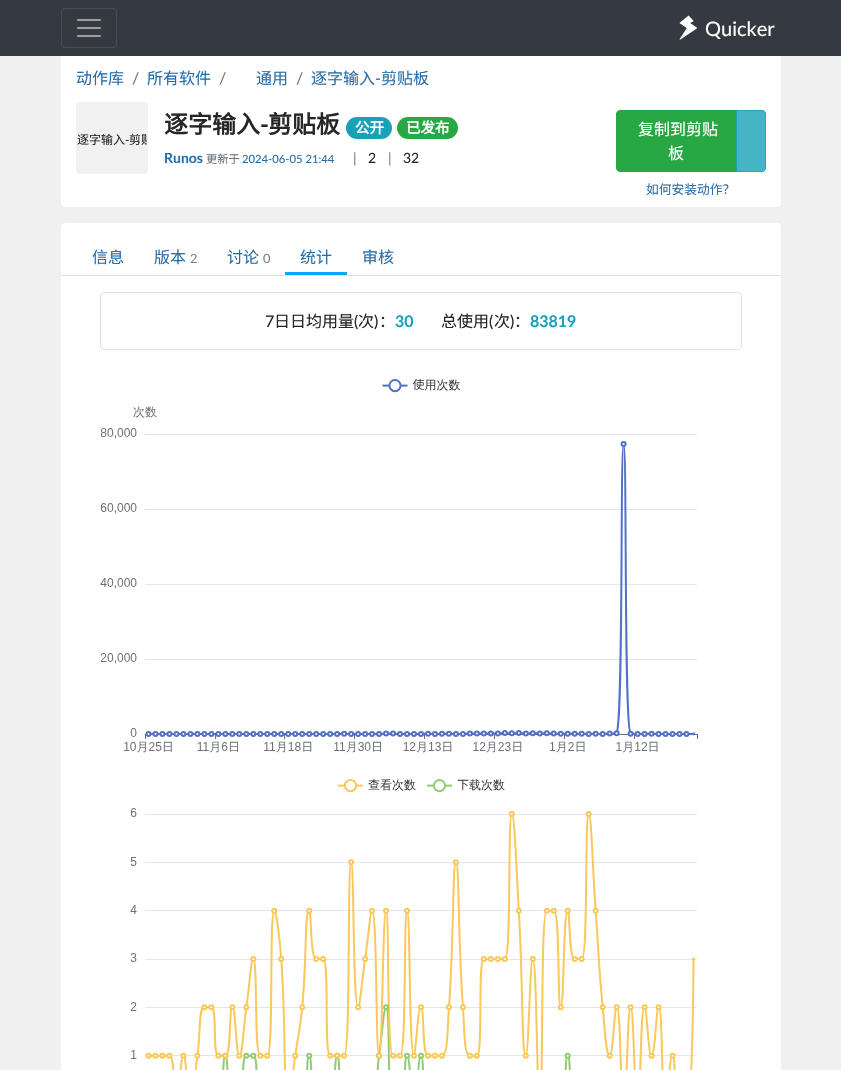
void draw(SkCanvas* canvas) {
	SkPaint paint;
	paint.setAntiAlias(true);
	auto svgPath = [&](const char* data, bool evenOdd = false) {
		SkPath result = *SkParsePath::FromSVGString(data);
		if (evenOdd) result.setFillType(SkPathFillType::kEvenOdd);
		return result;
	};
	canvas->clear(0xfff0f0f0);
	paint.setColor(0xffffffff);
	canvas->drawPath(svgPath("M61 54H781V203C781 205 779 207 777 207H65C63 207 61 205 61 203Z"), paint);
	paint.setColor(0xff343a40);
	canvas->drawRect(SkRect::MakeXYWH(0, 0, 841, 56), paint);
	paint.setStroke(true);
	paint.setStrokeWidth(1);
	paint.setColor(0xff484e53);
	canvas->drawRoundRect(SkRect::MakeXYWH(61.5, 8.5, 55, 39), 3.5, 3.5, paint);
	canvas->drawImageRect(SkImages::DeferredFromEncodedData(SkData::MakeFromFileName("img1.png")), SkRect::MakeXYWH(77, 19, 24, 18), SkSamplingOptions());
	canvas->drawImageRect(SkImages::DeferredFromEncodedData(SkData::MakeFromFileName("img2.png")), SkRect::MakeXYWH(679, 15, 18, 25), SkSamplingOptions());
	SkFont f1(fontMgr->matchFamilyStyle("Lato", SkFontStyle::Normal()), 20);
	f1.setSubpixel(true);
	paint.setStroke(false);
	paint.setColor(0xffffffff);
	canvas->drawString("Quicker", 705, 36, f1, paint);
	SkFont f2(fontMgr->matchFamilyStyle("Noto Sans CJK SC", SkFontStyle::Normal()), 16);
	f2.setSubpixel(true);
	paint.setColor(0xff286da8);
	canvas->drawString("动作库", 76, 84, f2, paint);
	SkFont f3(fontMgr->matchFamilyStyle("Lato", SkFontStyle::Normal()), 16);
	f3.setSubpixel(true);
	paint.setColor(0xff6c757d);
	canvas->drawString("/", 132, 84, f3, paint);
	paint.setColor(0xff286da8);
	canvas->drawString("所有软件", 147, 84, f2, paint);
	paint.setColor(0xff6c757d);
	canvas->drawString("/", 219, 84, f3, paint);
	paint.setColor(0xff286da8);
	canvas->drawString("通用", 256, 84, f2, paint);
	paint.setColor(0xff6c757d);
	canvas->drawString("/", 296, 84, f3, paint);
	paint.setColor(0xff286da8);
	canvas->drawString("逐字输入", 311, 84, f2, paint);
	canvas->drawString("-", 375, 84, f3, paint);
	canvas->drawString("剪贴板", 381, 84, f2, paint);
	paint.setColor(0xfff1f1f1);
	canvas->drawRoundRect(SkRect::MakeXYWH(76, 102, 72, 72), 4, 4, paint);
	SkFont f4(fontMgr->matchFamilyStyle("Noto Sans CJK SC", SkFontStyle::Normal()), 12);
	f4.setSubpixel(true);
	paint.setColor(0xff262626);
	canvas->drawString("逐字输入", 77, 144, f4, paint);
	SkFont f5(fontMgr->matchFamilyStyle("Lato", SkFontStyle::Normal()), 12);
	f5.setSubpixel(true);
	canvas->drawString("-", 125, 144, f5, paint);
	canvas->save();
	canvas->clipRect(SkRect::MakeXYWH(77, 131, 70, 15));
	canvas->drawString("剪贴", 129, 144, f4, paint);
	canvas->restore();
	SkFont f6(fontMgr->matchFamilyStyle("Noto Sans CJK SC", SkFontStyle::Bold()), 24);
	f6.setSubpixel(true);
	canvas->drawString("逐字输入", 164, 133, f6, paint);
	SkFont f7(fontMgr->matchFamilyStyle("Lato", SkFontStyle::Bold()), 24);
	f7.setSubpixel(true);
	canvas->drawString("-", 260, 133, f7, paint);
	canvas->drawString("剪贴板", 268, 133, f6, paint);
	paint.setColor(0xff17a2b8);
	canvas->drawRoundRect(SkRect::MakeXYWH(346, 117, 46, 22), 11, 11, paint);
	SkFont f8(fontMgr->matchFamilyStyle("Noto Sans CJK SC", SkFontStyle::Bold()), 14.5);
	f8.setSubpixel(true);
	paint.setColor(0xffffffff);
	canvas->drawString("公开", 355, 133, f8, paint);
	paint.setColor(0xff28a745);
	canvas->drawRoundRect(SkRect::MakeXYWH(397, 117, 61, 22), 11, 11, paint);
	paint.setColor(0xffffffff);
	canvas->drawString("已发布", 406, 133, f8, paint);
	SkFont f9(fontMgr->matchFamilyStyle("Lato", SkFontStyle::Bold()), 14);
	f9.setSubpixel(true);
	paint.setColor(0xff286da8);
	canvas->drawString("Runos", 164, 163, f9, paint);
	SkFont f10(fontMgr->matchFamilyStyle("Noto Sans CJK SC", SkFontStyle::Normal()), 11.25);
	f10.setSubpixel(true);
	paint.setColor(0xff6c757d);
	canvas->drawString("更新于", 206, 163, f10, paint);
	SkFont f11(fontMgr->matchFamilyStyle("Lato", SkFontStyle::Normal()), 11.25);
	f11.setSubpixel(true);
	paint.setColor(0xff286da8);
	canvas->drawString("2024-06-05 21:44", 242, 163, f11, paint);
	SkFont f12(fontMgr->matchFamilyStyle("Lato", SkFontStyle::Normal()), 14);
	f12.setSubpixel(true);
	paint.setColor(0xff808080);
	canvas->drawString("|", 353, 163, f12, paint);
	paint.setColor(0xff262626);
	canvas->drawString("2", 368, 163, f12, paint);
	paint.setColor(0xff808080);
	canvas->drawString("|", 388, 163, f12, paint);
	paint.setColor(0xff262626);
	canvas->drawString("32", 403, 163, f12, paint);
	paint.setColor(0xff28a745);
	canvas->drawPath(svgPath("M620 110.5H736.5V171.5H620C618 171.5 616.5 170 616.5 168V114C616.5 112 618 110.5 620 110.5Z"), paint);
	paint.setStroke(true);
	canvas->drawPath(svgPath("M620 110.5H736.5V171.5H620C618 171.5 616.5 170 616.5 168V114C616.5 112 618 110.5 620 110.5Z"), paint);
	paint.setStroke(false);
	paint.setColor(0xffffffff);
	canvas->drawString("复制到剪贴", 638, 135, f2, paint);
	canvas->drawString("板", 668, 159, f2, paint);
	paint.setColor(0xcc17a2b8);
	canvas->drawPath(svgPath("M736 110H762C764 110 766 112 766 114V168C766 170 764 172 762 172H736Z"), paint);
	paint.setStroke(true);
	canvas->drawPath(svgPath("M736.5 110.5H762C764 110.5 765.5 112 765.5 114V168C765.5 170 764 171.5 762 171.5H736.5Z"), paint);
	SkFont f13(fontMgr->matchFamilyStyle("Noto Sans CJK SC", SkFontStyle::Normal()), 12.75);
	f13.setSubpixel(true);
	paint.setStroke(false);
	paint.setColor(0xff286da8);
	canvas->drawString("如何安装动作？", 646, 194, f13, paint);
	paint.setColor(0xffffffff);
	canvas->drawPath(svgPath("M65 223H777C779 223 781 225 781 227V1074H61V227C61 225 63 223 65 223Z"), paint);
	paint.setColor(0xffdee2e6);
	canvas->drawRect(SkRect::MakeXYWH(61, 275, 720, 1), paint);
	paint.setColor(0xff286da8);
	canvas->drawString("信息", 92, 263, f2, paint);
	canvas->drawString("版本", 154, 263, f2, paint);
	SkFont f14(fontMgr->matchFamilyStyle("Lato", SkFontStyle::Normal()), 12.75);
	f14.setSubpixel(true);
	paint.setColor(0xff808080);
	canvas->drawString("2", 190, 263, f14, paint);
	paint.setColor(0xff286da8);
	canvas->drawString("讨论", 227, 263, f2, paint);
	paint.setColor(0xff808080);
	canvas->drawString("0", 263, 263, f14, paint);
	paint.setColor(0xff03a9f4);
	canvas->drawRect(SkRect::MakeXYWH(285, 272, 62, 3), paint);
	paint.setColor(0xff286da8);
	canvas->drawString("统计", 300, 263, f2, paint);
	canvas->drawString("审核", 362, 263, f2, paint);
	paint.setStroke(true);
	paint.setColor(0xffdee2e6);
	canvas->drawRoundRect(SkRect::MakeXYWH(100.5, 292.5, 641, 57), 3.5, 3.5, paint);
	paint.setStroke(false);
	paint.setColor(0xff262626);
	canvas->drawString("7", 265, 327, f3, paint);
	canvas->drawString("日日均用量", 274, 327, f2, paint);
	canvas->drawString("(", 354, 327, f3, paint);
	canvas->drawString("次", 358, 327, f2, paint);
	canvas->drawString(")", 374, 327, f3, paint);
	canvas->drawString("：", 379, 327, f2, paint);
	SkFont f15(fontMgr->matchFamilyStyle("Lato", SkFontStyle::Bold()), 16);
	f15.setSubpixel(true);
	paint.setColor(0xff17a2b8);
	canvas->drawString("30", 395, 327, f15, paint);
	paint.setColor(0xff262626);
	canvas->drawString("总使用", 441, 327, f2, paint);
	canvas->drawString("(", 489, 327, f3, paint);
	canvas->drawString("次", 494, 327, f2, paint);
	canvas->drawString(")", 510, 327, f3, paint);
	canvas->drawString("：", 514, 327, f2, paint);
	paint.setColor(0xff17a2b8);
	canvas->drawString("83819", 530, 327, f15, paint);
	canvas->drawImageRect(SkImages::DeferredFromEncodedData(SkData::MakeFromFileName("img3.png")), SkRect::MakeXYWH(100, 379, 598, 691), SkSamplingOptions());
}
